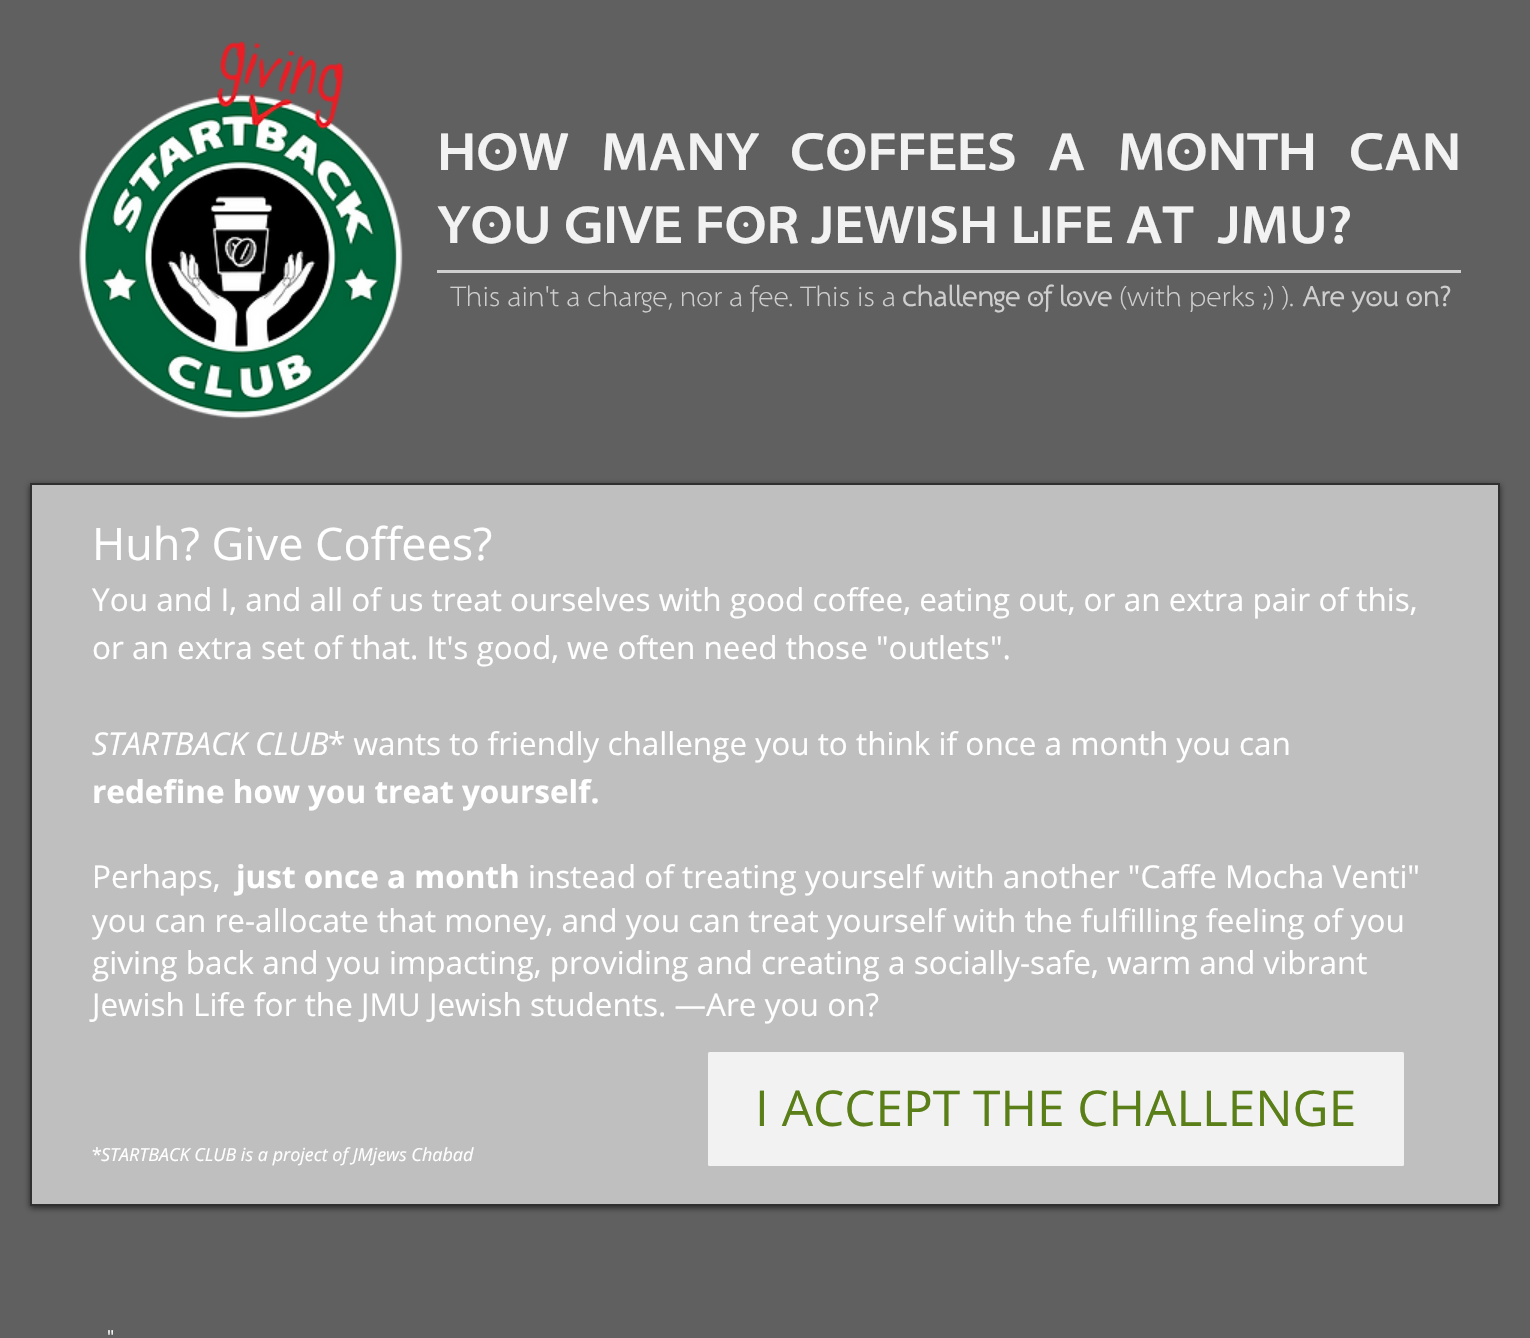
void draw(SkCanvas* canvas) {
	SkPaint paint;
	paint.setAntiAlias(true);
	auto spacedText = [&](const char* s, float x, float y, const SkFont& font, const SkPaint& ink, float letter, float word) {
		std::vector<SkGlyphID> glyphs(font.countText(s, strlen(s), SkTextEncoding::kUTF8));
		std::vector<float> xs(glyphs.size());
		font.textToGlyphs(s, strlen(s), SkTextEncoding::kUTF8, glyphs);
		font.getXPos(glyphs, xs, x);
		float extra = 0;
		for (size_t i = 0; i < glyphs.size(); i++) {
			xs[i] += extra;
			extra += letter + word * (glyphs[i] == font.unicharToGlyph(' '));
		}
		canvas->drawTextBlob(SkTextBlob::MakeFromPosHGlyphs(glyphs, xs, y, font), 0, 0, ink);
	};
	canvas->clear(0xff606060);
	canvas->drawImageRect(SkImages::DeferredFromEncodedData(SkData::MakeFromFileName("img1.png")), SkRect::MakeXYWH(79, 41, 324, 378), SkSamplingOptions());
	SkFont f1(fontMgr->matchFamilyStyle("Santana", SkFontStyle::Bold()), 54);
	f1.setSubpixel(true);
	paint.setColor(0xfff2f2f2);
	spacedText("HOW MANY", 437, 170, f1, paint, 0, 20);
	canvas->drawString("COFFEES", 790, 170, f1, paint);
	spacedText("A MONTH", 1048, 170, f1, paint, 0, 20);
	canvas->drawString("CAN", 1349, 170, f1, paint);
	canvas->drawString("YOU GIVE FOR JEWISH LIFE AT  JMU?", 437, 243, f1, paint);
	paint.setColor(0xffcfcfcf);
	canvas->drawRect(SkRect::MakeXYWH(437, 270, 1024, 3), paint);
	SkFont f2(fontMgr->matchFamilyStyle("Santana", SkFontStyle(300, SkFontStyle::kNormal_Width, SkFontStyle::kUpright_Slant)), 28.5);
	f2.setSubpixel(true);
	canvas->drawString("This ain't a charge, nor a fee. This is a", 451, 306, f2, paint);
	SkFont f3(fontMgr->matchFamilyStyle("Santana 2", SkFontStyle::Bold()), 28.5);
	f3.setSubpixel(true);
	canvas->drawString("challenge of love", 902, 306, f3, paint);
	canvas->drawString("(with perks ;) ).", 1119, 306, f2, paint);
	canvas->drawString("Are you on?", 1302, 306, f3, paint);
	paint.setColor(0x99000000);
	paint.setMaskFilter(SkMaskFilter::MakeBlur(kNormal_SkBlurStyle, 3));
	canvas->drawRect(SkRect::MakeXYWH(30, 485, 1470, 723), paint);
	paint.setMaskFilter(nullptr);
	paint.setColor(0xffbfbfbf);
	canvas->drawRect(SkRect::MakeXYWH(31, 484, 1468, 721), paint);
	paint.setStroke(true);
	paint.setStrokeWidth(2);
	paint.setColor(0xff303030);
	canvas->drawRect(SkRect::MakeXYWH(31, 484, 1468, 721), paint);
	SkFont f4(fontMgr->matchFamilyStyle("Open Sans", SkFontStyle::Normal()), 45);
	f4.setSubpixel(true);
	paint.setStroke(false);
	paint.setColor(0xffffffff);
	canvas->drawString("Huh? Give Coffees?", 92, 560, f4, paint);
	SkFont f5(fontMgr->matchFamilyStyle("Open Sans", SkFontStyle::Normal()), 31.5);
	f5.setSubpixel(true);
	canvas->drawString("You and I, and all of us treat ourselves with good coffee, eating out, or an extra pair of this,", 92, 611, f5, paint);
	canvas->drawString("or an extra set of that. It's good, we often need those \"outlets\".", 92, 659, f5, paint);
	SkFont f6(fontMgr->matchFamilyStyle("Open Sans", SkFontStyle::Italic()), 31.5);
	f6.setSubpixel(true);
	canvas->drawString("STARTBACK CLUB", 92, 755, f6, paint);
	canvas->drawString("* wants to friendly challenge you to think if once a month you can", 328, 755, f5, paint);
	SkFont f7(fontMgr->matchFamilyStyle("Open Sans", SkFontStyle::Bold()), 31.5);
	f7.setSubpixel(true);
	canvas->drawString("redefine how you treat yourself.", 92, 803, f7, paint);
	canvas->drawString("Perhaps,", 92, 888, f5, paint);
	canvas->drawString("just once a month", 236, 888, f7, paint);
	canvas->drawString("instead of treating yourself with another \"Caffe Mocha Venti\"", 528, 888, f5, paint);
	canvas->drawString("you can re-allocate that money, and you can treat yourself with the fulfilling feeling of you", 92, 932, f5, paint);
	canvas->drawString("giving back and you impacting, providing and creating a socially-safe, warm and vibrant", 92, 974, f5, paint);
	canvas->drawString("Jewish Life for the JMU Jewish students. —Are you on?", 92, 1016, f5, paint);
	paint.setColor(0xfff2f2f2);
	canvas->drawRoundRect(SkRect::MakeXYWH(708, 1052, 696, 114), 1.5, 1.5, paint);
	SkFont f8(fontMgr->matchFamilyStyle("Open Sans", SkFontStyle::Normal()), 49.5);
	f8.setSubpixel(true);
	paint.setColor(0xff5b7f18);
	canvas->drawString("I ACCEPT THE CHALLENGE", 755, 1126, f8, paint);
	SkFont f9(fontMgr->matchFamilyStyle("Open Sans", SkFontStyle::Normal()), 18);
	f9.setSubpixel(true);
	paint.setColor(0xffffffff);
	canvas->drawString("*", 92, 1161, f9, paint);
	SkFont f10(fontMgr->matchFamilyStyle("Open Sans", SkFontStyle::Italic()), 18);
	f10.setSubpixel(true);
	canvas->drawString("STARTBACK CLUB is a project of JMjews Chabad", 101, 1161, f10, paint);
	canvas->drawString("\"", 107, 1343, f9, paint);
}
